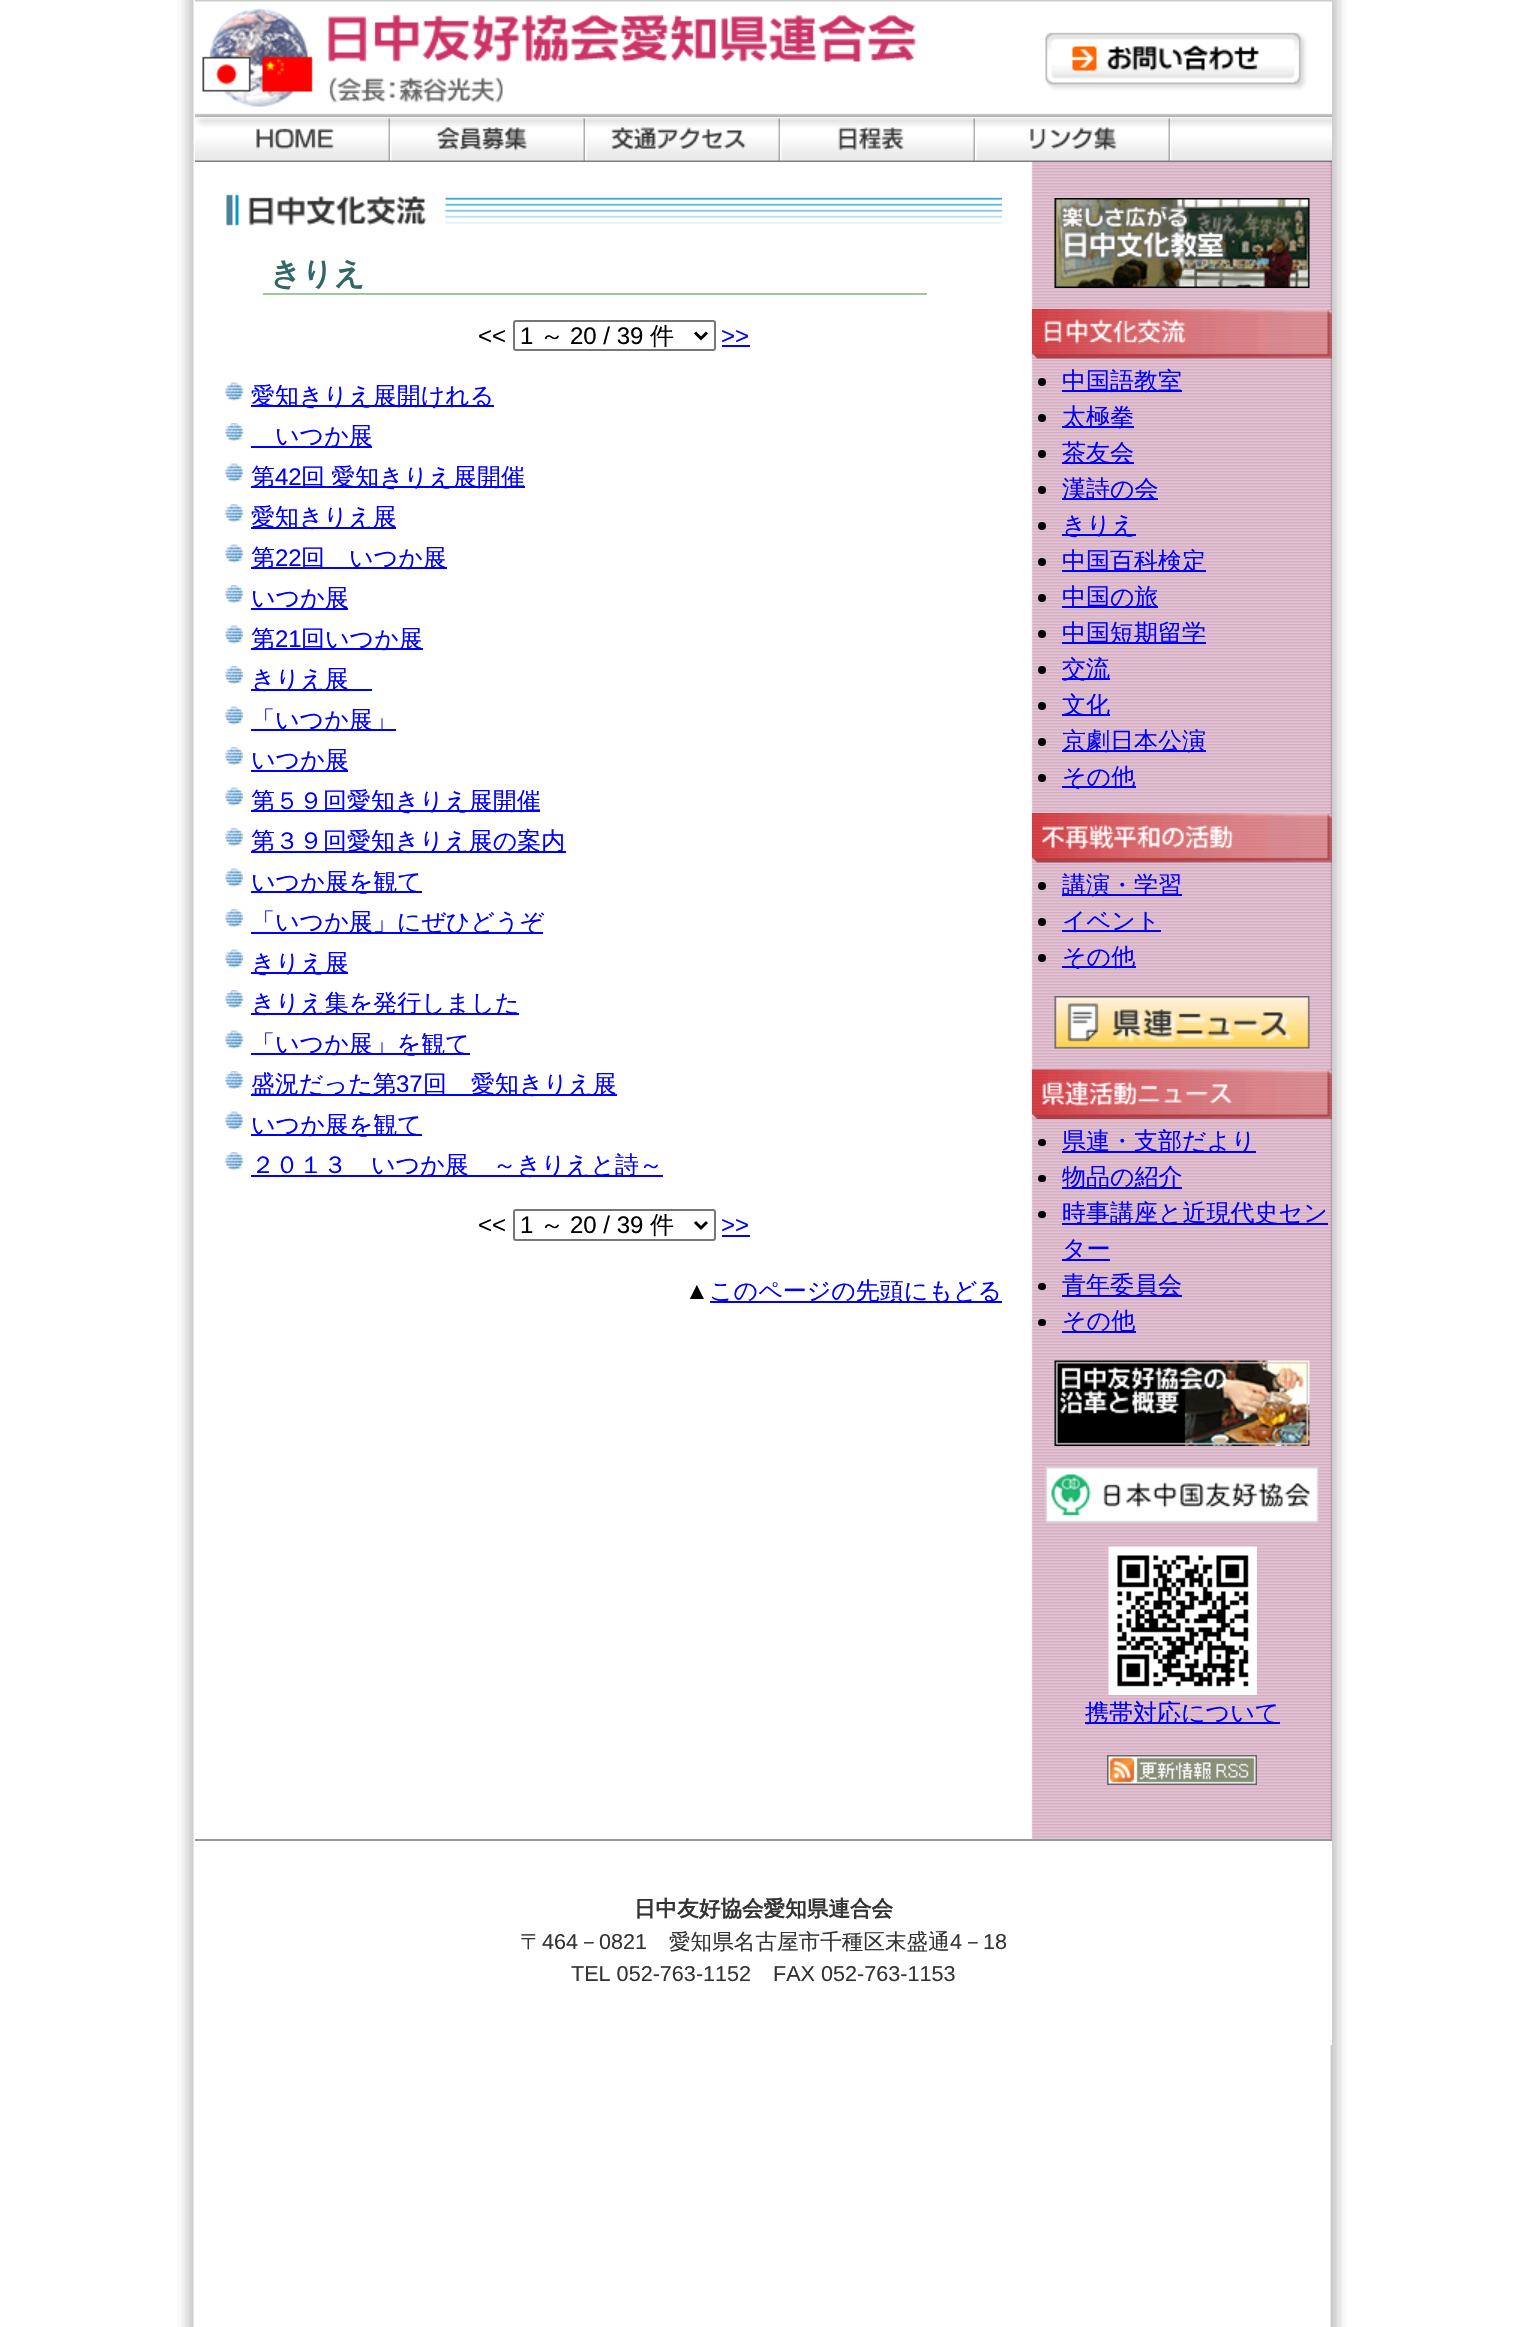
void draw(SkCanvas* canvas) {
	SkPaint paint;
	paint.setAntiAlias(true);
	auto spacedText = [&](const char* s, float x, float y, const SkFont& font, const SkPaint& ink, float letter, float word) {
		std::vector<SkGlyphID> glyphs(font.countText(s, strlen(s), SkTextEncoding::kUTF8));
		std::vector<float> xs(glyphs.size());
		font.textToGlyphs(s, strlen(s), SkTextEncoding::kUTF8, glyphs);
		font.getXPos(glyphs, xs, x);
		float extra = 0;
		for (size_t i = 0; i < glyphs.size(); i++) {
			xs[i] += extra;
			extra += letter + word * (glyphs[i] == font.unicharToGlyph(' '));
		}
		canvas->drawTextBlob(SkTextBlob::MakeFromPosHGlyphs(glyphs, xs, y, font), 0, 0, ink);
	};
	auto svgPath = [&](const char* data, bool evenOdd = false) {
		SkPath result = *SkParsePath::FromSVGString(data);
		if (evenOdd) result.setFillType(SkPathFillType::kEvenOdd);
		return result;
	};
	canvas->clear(0xffffffff);
	canvas->drawImageRect(SkImages::DeferredFromEncodedData(SkData::MakeFromFileName("img1.png")), SkRect::MakeXYWH(177, 0, 1170, 2327), SkSamplingOptions());
	canvas->drawImageRect(SkImages::DeferredFromEncodedData(SkData::MakeFromFileName("img2.png")), SkRect::MakeXYWH(1031, 162, 301, 1677), SkSamplingOptions());
	canvas->drawImageRect(SkImages::DeferredFromEncodedData(SkData::MakeFromFileName("img3.png")), SkRect::MakeXYWH(195, 0, 1137, 117), SkSamplingOptions());
	canvas->drawImageRect(SkImages::DeferredFromEncodedData(SkData::MakeFromFileName("img4.png")), SkRect::MakeXYWH(1170, 117, 162, 45), SkSamplingOptions());
	canvas->drawImageRect(SkImages::DeferredFromEncodedData(SkData::MakeFromFileName("img5.png")), SkRect::MakeXYWH(195, 117, 195, 45), SkSamplingOptions());
	canvas->drawImageRect(SkImages::DeferredFromEncodedData(SkData::MakeFromFileName("img6.png")), SkRect::MakeXYWH(390, 117, 195, 45), SkSamplingOptions());
	canvas->drawImageRect(SkImages::DeferredFromEncodedData(SkData::MakeFromFileName("img7.png")), SkRect::MakeXYWH(585, 117, 195, 45), SkSamplingOptions());
	canvas->drawImageRect(SkImages::DeferredFromEncodedData(SkData::MakeFromFileName("img8.png")), SkRect::MakeXYWH(780, 117, 195, 45), SkSamplingOptions());
	canvas->drawImageRect(SkImages::DeferredFromEncodedData(SkData::MakeFromFileName("img9.png")), SkRect::MakeXYWH(975, 117, 195, 45), SkSamplingOptions());
	canvas->drawImageRect(SkImages::DeferredFromEncodedData(SkData::MakeFromFileName("img10.png")), SkRect::MakeXYWH(226, 194, 776, 32), SkSamplingOptions());
	paint.setColor(0xff99cc99);
	canvas->drawRect(SkRect::MakeXYWH(263, 293, 664, 2), paint);
	SkFont f1(fontMgr->matchFamilyStyle("WenQuanYi Zen Hei", SkFontStyle::Bold()), 31);
	f1.setSubpixel(true);
	paint.setColor(0xff336666);
	canvas->drawString("きりえ", 270, 284, f1, paint);
	SkFont f2(fontMgr->matchFamilyStyle("Liberation Sans", SkFontStyle::Normal()), 24);
	f2.setSubpixel(true);
	paint.setColor(0xff000000);
	canvas->drawString("<<", 478, 344, f2, paint);
	paint.setStroke(true);
	paint.setStrokeWidth(2);
	paint.setColor(0xff767676);
	canvas->drawRoundRect(SkRect::MakeXYWH(514, 321, 201, 29), 2, 2, paint);
	paint.setStrokeWidth(3);
	paint.setColor(0xff000000);
	canvas->drawPath(svgPath("M695 332.5L701 338.5L707 332.5"), paint);
	paint.setStroke(false);
	canvas->drawString("1", 520, 344, f2, paint);
	SkFont f3(fontMgr->matchFamilyStyle("WenQuanYi Zen Hei", SkFontStyle(500, SkFontStyle::kNormal_Width, SkFontStyle::kUpright_Slant)), 24);
	f3.setSubpixel(true);
	canvas->drawString("～", 540, 344, f3, paint);
	canvas->drawString("20 / 39", 570, 344, f2, paint);
	canvas->drawString("件", 650, 344, f3, paint);
	paint.setColor(0xff0000ff);
	canvas->drawString(">>", 721, 344, f2, paint);
	canvas->drawRect(SkRect::MakeXYWH(722, 345, 28, 2), paint);
	canvas->drawImageRect(SkImages::DeferredFromEncodedData(SkData::MakeFromFileName("img11.png")), SkRect::MakeXYWH(225, 382, 18, 19), SkSamplingOptions());
	canvas->drawRect(SkRect::MakeXYWH(251, 405, 243, 2), paint);
	canvas->drawString("愛知きりえ展開けれる", 251, 404, f3, paint);
	canvas->drawImageRect(SkImages::DeferredFromEncodedData(SkData::MakeFromFileName("img12.png")), SkRect::MakeXYWH(225, 423, 18, 18), SkSamplingOptions());
	canvas->drawRect(SkRect::MakeXYWH(251, 446, 121, 2), paint);
	canvas->drawString("いつか展", 275, 444, f3, paint);
	canvas->drawImageRect(SkImages::DeferredFromEncodedData(SkData::MakeFromFileName("img11.png")), SkRect::MakeXYWH(225, 463, 18, 19), SkSamplingOptions());
	canvas->drawRect(SkRect::MakeXYWH(251, 486, 274, 2), paint);
	canvas->drawString("第", 251, 485, f3, paint);
	canvas->drawString("42", 275, 485, f2, paint);
	spacedText("回 愛知きりえ展開催", 301, 485, f3, paint, 0, -1);
	canvas->drawImageRect(SkImages::DeferredFromEncodedData(SkData::MakeFromFileName("img12.png")), SkRect::MakeXYWH(225, 504, 18, 18), SkSamplingOptions());
	canvas->drawRect(SkRect::MakeXYWH(251, 527, 145, 2), paint);
	canvas->drawString("愛知きりえ展", 251, 525, f3, paint);
	canvas->drawImageRect(SkImages::DeferredFromEncodedData(SkData::MakeFromFileName("img11.png")), SkRect::MakeXYWH(225, 544, 18, 19), SkSamplingOptions());
	canvas->drawRect(SkRect::MakeXYWH(251, 567, 196, 2), paint);
	canvas->drawString("第", 251, 566, f3, paint);
	canvas->drawString("22", 275, 566, f2, paint);
	canvas->drawString("回　いつか展", 301, 566, f3, paint);
	canvas->drawImageRect(SkImages::DeferredFromEncodedData(SkData::MakeFromFileName("img12.png")), SkRect::MakeXYWH(225, 585, 18, 18), SkSamplingOptions());
	canvas->drawRect(SkRect::MakeXYWH(251, 608, 97, 2), paint);
	canvas->drawString("いつか展", 251, 606, f3, paint);
	canvas->drawImageRect(SkImages::DeferredFromEncodedData(SkData::MakeFromFileName("img11.png")), SkRect::MakeXYWH(225, 625, 18, 19), SkSamplingOptions());
	canvas->drawRect(SkRect::MakeXYWH(251, 648, 172, 2), paint);
	canvas->drawString("第", 251, 647, f3, paint);
	canvas->drawString("21", 275, 647, f2, paint);
	canvas->drawString("回いつか展", 301, 647, f3, paint);
	canvas->drawImageRect(SkImages::DeferredFromEncodedData(SkData::MakeFromFileName("img12.png")), SkRect::MakeXYWH(225, 666, 18, 18), SkSamplingOptions());
	canvas->drawRect(SkRect::MakeXYWH(251, 689, 121, 2), paint);
	canvas->drawString("きりえ展", 251, 687, f3, paint);
	canvas->drawImageRect(SkImages::DeferredFromEncodedData(SkData::MakeFromFileName("img11.png")), SkRect::MakeXYWH(225, 706, 18, 19), SkSamplingOptions());
	canvas->drawRect(SkRect::MakeXYWH(251, 729, 145, 2), paint);
	canvas->drawString("「いつか展」", 251, 728, f3, paint);
	canvas->drawImageRect(SkImages::DeferredFromEncodedData(SkData::MakeFromFileName("img12.png")), SkRect::MakeXYWH(225, 747, 18, 18), SkSamplingOptions());
	canvas->drawRect(SkRect::MakeXYWH(251, 770, 97, 2), paint);
	canvas->drawString("いつか展", 251, 768, f3, paint);
	canvas->drawImageRect(SkImages::DeferredFromEncodedData(SkData::MakeFromFileName("img11.png")), SkRect::MakeXYWH(225, 787, 18, 19), SkSamplingOptions());
	canvas->drawRect(SkRect::MakeXYWH(251, 810, 289, 2), paint);
	canvas->drawString("第５９回愛知きりえ展開催", 251, 809, f3, paint);
	canvas->drawImageRect(SkImages::DeferredFromEncodedData(SkData::MakeFromFileName("img12.png")), SkRect::MakeXYWH(225, 828, 18, 18), SkSamplingOptions());
	canvas->drawRect(SkRect::MakeXYWH(251, 851, 315, 2), paint);
	canvas->drawString("第３９回愛知きりえ展の案内", 251, 849, f3, paint);
	canvas->drawImageRect(SkImages::DeferredFromEncodedData(SkData::MakeFromFileName("img11.png")), SkRect::MakeXYWH(225, 868, 18, 19), SkSamplingOptions());
	canvas->drawRect(SkRect::MakeXYWH(251, 891, 171, 2), paint);
	canvas->drawString("いつか展を観て", 251, 890, f3, paint);
	canvas->drawImageRect(SkImages::DeferredFromEncodedData(SkData::MakeFromFileName("img12.png")), SkRect::MakeXYWH(225, 909, 18, 18), SkSamplingOptions());
	canvas->drawRect(SkRect::MakeXYWH(251, 932, 292, 2), paint);
	canvas->drawString("「いつか展」にぜひどうぞ", 251, 930, f3, paint);
	canvas->drawImageRect(SkImages::DeferredFromEncodedData(SkData::MakeFromFileName("img11.png")), SkRect::MakeXYWH(225, 949, 18, 19), SkSamplingOptions());
	canvas->drawRect(SkRect::MakeXYWH(251, 972, 97, 2), paint);
	canvas->drawString("きりえ展", 251, 971, f3, paint);
	canvas->drawImageRect(SkImages::DeferredFromEncodedData(SkData::MakeFromFileName("img12.png")), SkRect::MakeXYWH(225, 990, 18, 18), SkSamplingOptions());
	canvas->drawRect(SkRect::MakeXYWH(251, 1013, 268, 2), paint);
	canvas->drawString("きりえ集を発行しました", 251, 1011, f3, paint);
	canvas->drawImageRect(SkImages::DeferredFromEncodedData(SkData::MakeFromFileName("img11.png")), SkRect::MakeXYWH(225, 1030, 18, 19), SkSamplingOptions());
	canvas->drawRect(SkRect::MakeXYWH(251, 1053, 219, 2), paint);
	canvas->drawString("「いつか展」を観て", 251, 1052, f3, paint);
	canvas->drawImageRect(SkImages::DeferredFromEncodedData(SkData::MakeFromFileName("img12.png")), SkRect::MakeXYWH(225, 1071, 18, 18), SkSamplingOptions());
	canvas->drawRect(SkRect::MakeXYWH(251, 1094, 366, 2), paint);
	canvas->drawString("盛況だった第", 251, 1092, f3, paint);
	canvas->drawString("37", 396, 1092, f2, paint);
	canvas->drawString("回　愛知きりえ展", 423, 1092, f3, paint);
	canvas->drawImageRect(SkImages::DeferredFromEncodedData(SkData::MakeFromFileName("img11.png")), SkRect::MakeXYWH(225, 1111, 18, 19), SkSamplingOptions());
	canvas->drawRect(SkRect::MakeXYWH(251, 1134, 171, 2), paint);
	canvas->drawString("いつか展を観て", 251, 1133, f3, paint);
	canvas->drawImageRect(SkImages::DeferredFromEncodedData(SkData::MakeFromFileName("img12.png")), SkRect::MakeXYWH(225, 1152, 18, 18), SkSamplingOptions());
	canvas->drawRect(SkRect::MakeXYWH(251, 1175, 412, 2), paint);
	canvas->drawString("２０１３　いつか展　～きりえと詩～", 251, 1173, f3, paint);
	paint.setColor(0xff000000);
	canvas->drawString("<<", 478, 1233, f2, paint);
	paint.setStroke(true);
	paint.setStrokeWidth(2);
	paint.setColor(0xff767676);
	canvas->drawRoundRect(SkRect::MakeXYWH(514, 1210, 201, 30), 2, 2, paint);
	paint.setStrokeWidth(3);
	paint.setColor(0xff000000);
	canvas->drawPath(svgPath("M695 1222L701 1228L707 1222"), paint);
	paint.setStroke(false);
	canvas->drawString("1", 520, 1233, f2, paint);
	canvas->drawString("～", 540, 1233, f3, paint);
	canvas->drawString("20 / 39", 570, 1233, f2, paint);
	canvas->drawString("件", 650, 1233, f3, paint);
	paint.setColor(0xff0000ff);
	canvas->drawString(">>", 721, 1233, f2, paint);
	canvas->drawRect(SkRect::MakeXYWH(722, 1235, 28, 2), paint);
	paint.setColor(0xff000000);
	canvas->drawString("▲", 685, 1299, f2, paint);
	paint.setColor(0xff0000ff);
	canvas->drawRect(SkRect::MakeXYWH(710, 1301, 292, 2), paint);
	canvas->drawString("このページの先頭にもどる", 709, 1299, f3, paint);
	canvas->drawImageRect(SkImages::DeferredFromEncodedData(SkData::MakeFromFileName("img13.png")), SkRect::MakeXYWH(1054, 198, 256, 90), SkSamplingOptions());
	canvas->drawImageRect(SkImages::DeferredFromEncodedData(SkData::MakeFromFileName("img14.png")), SkRect::MakeXYWH(1032, 309, 300, 50), SkSamplingOptions());
	paint.setColor(0xff000000);
	canvas->drawCircle(1042, 382, 4, paint);
	paint.setColor(0xff0000ff);
	canvas->drawRect(SkRect::MakeXYWH(1062, 390, 120, 2), paint);
	canvas->drawString("中国語教室", 1062, 389, f3, paint);
	paint.setColor(0xff000000);
	canvas->drawCircle(1042, 418, 4, paint);
	paint.setColor(0xff0000ff);
	canvas->drawRect(SkRect::MakeXYWH(1062, 426, 72, 2), paint);
	canvas->drawString("太極拳", 1062, 425, f3, paint);
	paint.setColor(0xff000000);
	canvas->drawCircle(1042, 454, 4, paint);
	paint.setColor(0xff0000ff);
	canvas->drawRect(SkRect::MakeXYWH(1062, 462, 72, 2), paint);
	canvas->drawString("茶友会", 1062, 461, f3, paint);
	paint.setColor(0xff000000);
	canvas->drawCircle(1042, 490, 4, paint);
	paint.setColor(0xff0000ff);
	canvas->drawRect(SkRect::MakeXYWH(1062, 498, 96, 2), paint);
	canvas->drawString("漢詩の会", 1062, 497, f3, paint);
	paint.setColor(0xff000000);
	canvas->drawCircle(1042, 526, 4, paint);
	paint.setColor(0xff0000ff);
	canvas->drawRect(SkRect::MakeXYWH(1062, 534, 74, 2), paint);
	canvas->drawString("きりえ", 1062, 533, f3, paint);
	paint.setColor(0xff000000);
	canvas->drawCircle(1042, 562, 4, paint);
	paint.setColor(0xff0000ff);
	canvas->drawRect(SkRect::MakeXYWH(1062, 570, 144, 2), paint);
	canvas->drawString("中国百科検定", 1062, 569, f3, paint);
	paint.setColor(0xff000000);
	canvas->drawCircle(1042, 598, 4, paint);
	paint.setColor(0xff0000ff);
	canvas->drawRect(SkRect::MakeXYWH(1062, 606, 96, 2), paint);
	canvas->drawString("中国の旅", 1062, 605, f3, paint);
	paint.setColor(0xff000000);
	canvas->drawCircle(1042, 634, 4, paint);
	paint.setColor(0xff0000ff);
	canvas->drawRect(SkRect::MakeXYWH(1062, 642, 144, 2), paint);
	canvas->drawString("中国短期留学", 1062, 641, f3, paint);
	paint.setColor(0xff000000);
	canvas->drawCircle(1042, 670, 4, paint);
	paint.setColor(0xff0000ff);
	canvas->drawRect(SkRect::MakeXYWH(1062, 678, 48, 2), paint);
	canvas->drawString("交流", 1062, 677, f3, paint);
	paint.setColor(0xff000000);
	canvas->drawCircle(1042, 706, 4, paint);
	paint.setColor(0xff0000ff);
	canvas->drawRect(SkRect::MakeXYWH(1062, 714, 48, 2), paint);
	canvas->drawString("文化", 1062, 713, f3, paint);
	paint.setColor(0xff000000);
	canvas->drawCircle(1042, 742, 4, paint);
	paint.setColor(0xff0000ff);
	canvas->drawRect(SkRect::MakeXYWH(1062, 750, 144, 2), paint);
	canvas->drawString("京劇日本公演", 1062, 749, f3, paint);
	paint.setColor(0xff000000);
	canvas->drawCircle(1042, 778, 4, paint);
	paint.setColor(0xff0000ff);
	canvas->drawRect(SkRect::MakeXYWH(1062, 786, 74, 2), paint);
	canvas->drawString("その他", 1062, 785, f3, paint);
	canvas->drawImageRect(SkImages::DeferredFromEncodedData(SkData::MakeFromFileName("img15.png")), SkRect::MakeXYWH(1032, 813, 300, 50), SkSamplingOptions());
	paint.setColor(0xff000000);
	canvas->drawCircle(1042, 886, 4, paint);
	paint.setColor(0xff0000ff);
	canvas->drawRect(SkRect::MakeXYWH(1062, 894, 120, 2), paint);
	canvas->drawString("講演・学習", 1062, 893, f3, paint);
	paint.setColor(0xff000000);
	canvas->drawCircle(1042, 922, 4, paint);
	paint.setColor(0xff0000ff);
	canvas->drawRect(SkRect::MakeXYWH(1062, 930, 99, 2), paint);
	canvas->drawString("イベント", 1062, 929, f3, paint);
	paint.setColor(0xff000000);
	canvas->drawCircle(1042, 958, 4, paint);
	paint.setColor(0xff0000ff);
	canvas->drawRect(SkRect::MakeXYWH(1062, 966, 74, 2), paint);
	canvas->drawString("その他", 1062, 965, f3, paint);
	canvas->drawImageRect(SkImages::DeferredFromEncodedData(SkData::MakeFromFileName("img16.png")), SkRect::MakeXYWH(1054, 996, 256, 53), SkSamplingOptions());
	canvas->drawImageRect(SkImages::DeferredFromEncodedData(SkData::MakeFromFileName("img17.png")), SkRect::MakeXYWH(1032, 1069, 300, 50), SkSamplingOptions());
	paint.setColor(0xff000000);
	canvas->drawRoundRect(SkRect::MakeXYWH(1038, 1139, 8, 7), 3.5, 3.5, paint);
	paint.setColor(0xff0000ff);
	canvas->drawRect(SkRect::MakeXYWH(1062, 1151, 194, 2), paint);
	canvas->drawString("県連・支部だより", 1062, 1149, f3, paint);
	paint.setColor(0xff000000);
	canvas->drawRoundRect(SkRect::MakeXYWH(1038, 1175, 8, 7), 3.5, 3.5, paint);
	paint.setColor(0xff0000ff);
	canvas->drawRect(SkRect::MakeXYWH(1062, 1187, 120, 2), paint);
	canvas->drawString("物品の紹介", 1062, 1185, f3, paint);
	paint.setColor(0xff000000);
	canvas->drawRoundRect(SkRect::MakeXYWH(1038, 1211, 8, 7), 3.5, 3.5, paint);
	paint.setColor(0xff0000ff);
	canvas->drawRect(SkRect::MakeXYWH(1062, 1223, 266, 2), paint);
	canvas->drawString("時事講座と近現代史セン", 1062, 1221, f3, paint);
	canvas->drawRect(SkRect::MakeXYWH(1062, 1259, 48, 2), paint);
	canvas->drawString("ター", 1062, 1257, f3, paint);
	paint.setColor(0xff000000);
	canvas->drawRoundRect(SkRect::MakeXYWH(1038, 1283, 8, 7), 3.5, 3.5, paint);
	paint.setColor(0xff0000ff);
	canvas->drawRect(SkRect::MakeXYWH(1062, 1295, 120, 2), paint);
	canvas->drawString("青年委員会", 1062, 1293, f3, paint);
	paint.setColor(0xff000000);
	canvas->drawRoundRect(SkRect::MakeXYWH(1038, 1319, 8, 7), 3.5, 3.5, paint);
	paint.setColor(0xff0000ff);
	canvas->drawRect(SkRect::MakeXYWH(1062, 1331, 74, 2), paint);
	canvas->drawString("その他", 1062, 1329, f3, paint);
	canvas->drawImageRect(SkImages::DeferredFromEncodedData(SkData::MakeFromFileName("img18.png")), SkRect::MakeXYWH(1054, 1360, 256, 86), SkSamplingOptions());
	canvas->drawImageRect(SkImages::DeferredFromEncodedData(SkData::MakeFromFileName("img19.png")), SkRect::MakeXYWH(1045, 1467, 274, 56), SkSamplingOptions());
	canvas->drawImageRect(SkImages::DeferredFromEncodedData(SkData::MakeFromFileName("img20.png")), SkRect::MakeXYWH(1108, 1546, 149, 149), SkSamplingOptions());
	canvas->drawRect(SkRect::MakeXYWH(1085, 1722, 195, 2), paint);
	canvas->drawString("携帯対応について", 1085, 1721, f3, paint);
	canvas->drawImageRect(SkImages::DeferredFromEncodedData(SkData::MakeFromFileName("img21.png")), SkRect::MakeXYWH(1107, 1755, 150, 30), SkSamplingOptions());
	paint.setColor(0xffffffff);
	canvas->drawRect(SkRect::MakeXYWH(1330, 1841, 2, 204), paint);
	paint.setColor(0xff999999);
	canvas->drawRect(SkRect::MakeXYWH(195, 1839, 1137, 2), paint);
	SkFont f4(fontMgr->matchFamilyStyle("WenQuanYi Zen Hei", SkFontStyle::Bold()), 21.6);
	f4.setSubpixel(true);
	paint.setColor(0xff333333);
	canvas->drawString("日中友好協会愛知県連合会", 634, 1916, f4, paint);
	SkFont f5(fontMgr->matchFamilyStyle("WenQuanYi Zen Hei", SkFontStyle(500, SkFontStyle::kNormal_Width, SkFontStyle::kUpright_Slant)), 21.6);
	f5.setSubpixel(true);
	canvas->drawString("〒", 520, 1949, f5, paint);
	SkFont f6(fontMgr->matchFamilyStyle("Liberation Sans", SkFontStyle::Normal()), 21.6);
	f6.setSubpixel(true);
	canvas->drawString("464", 542, 1949, f6, paint);
	canvas->drawString("－", 578, 1949, f5, paint);
	canvas->drawString("0821", 599, 1949, f6, paint);
	canvas->drawString("愛知県名古屋市千種区末盛通", 669, 1949, f5, paint);
	canvas->drawString("4", 950, 1949, f6, paint);
	canvas->drawString("－", 962, 1949, f5, paint);
	canvas->drawString("18", 983, 1949, f6, paint);
	canvas->drawString("TEL 052-763-1152", 571, 1981, f6, paint);
	canvas->drawString("FAX 052-763-1153", 773, 1981, f6, paint);
}
